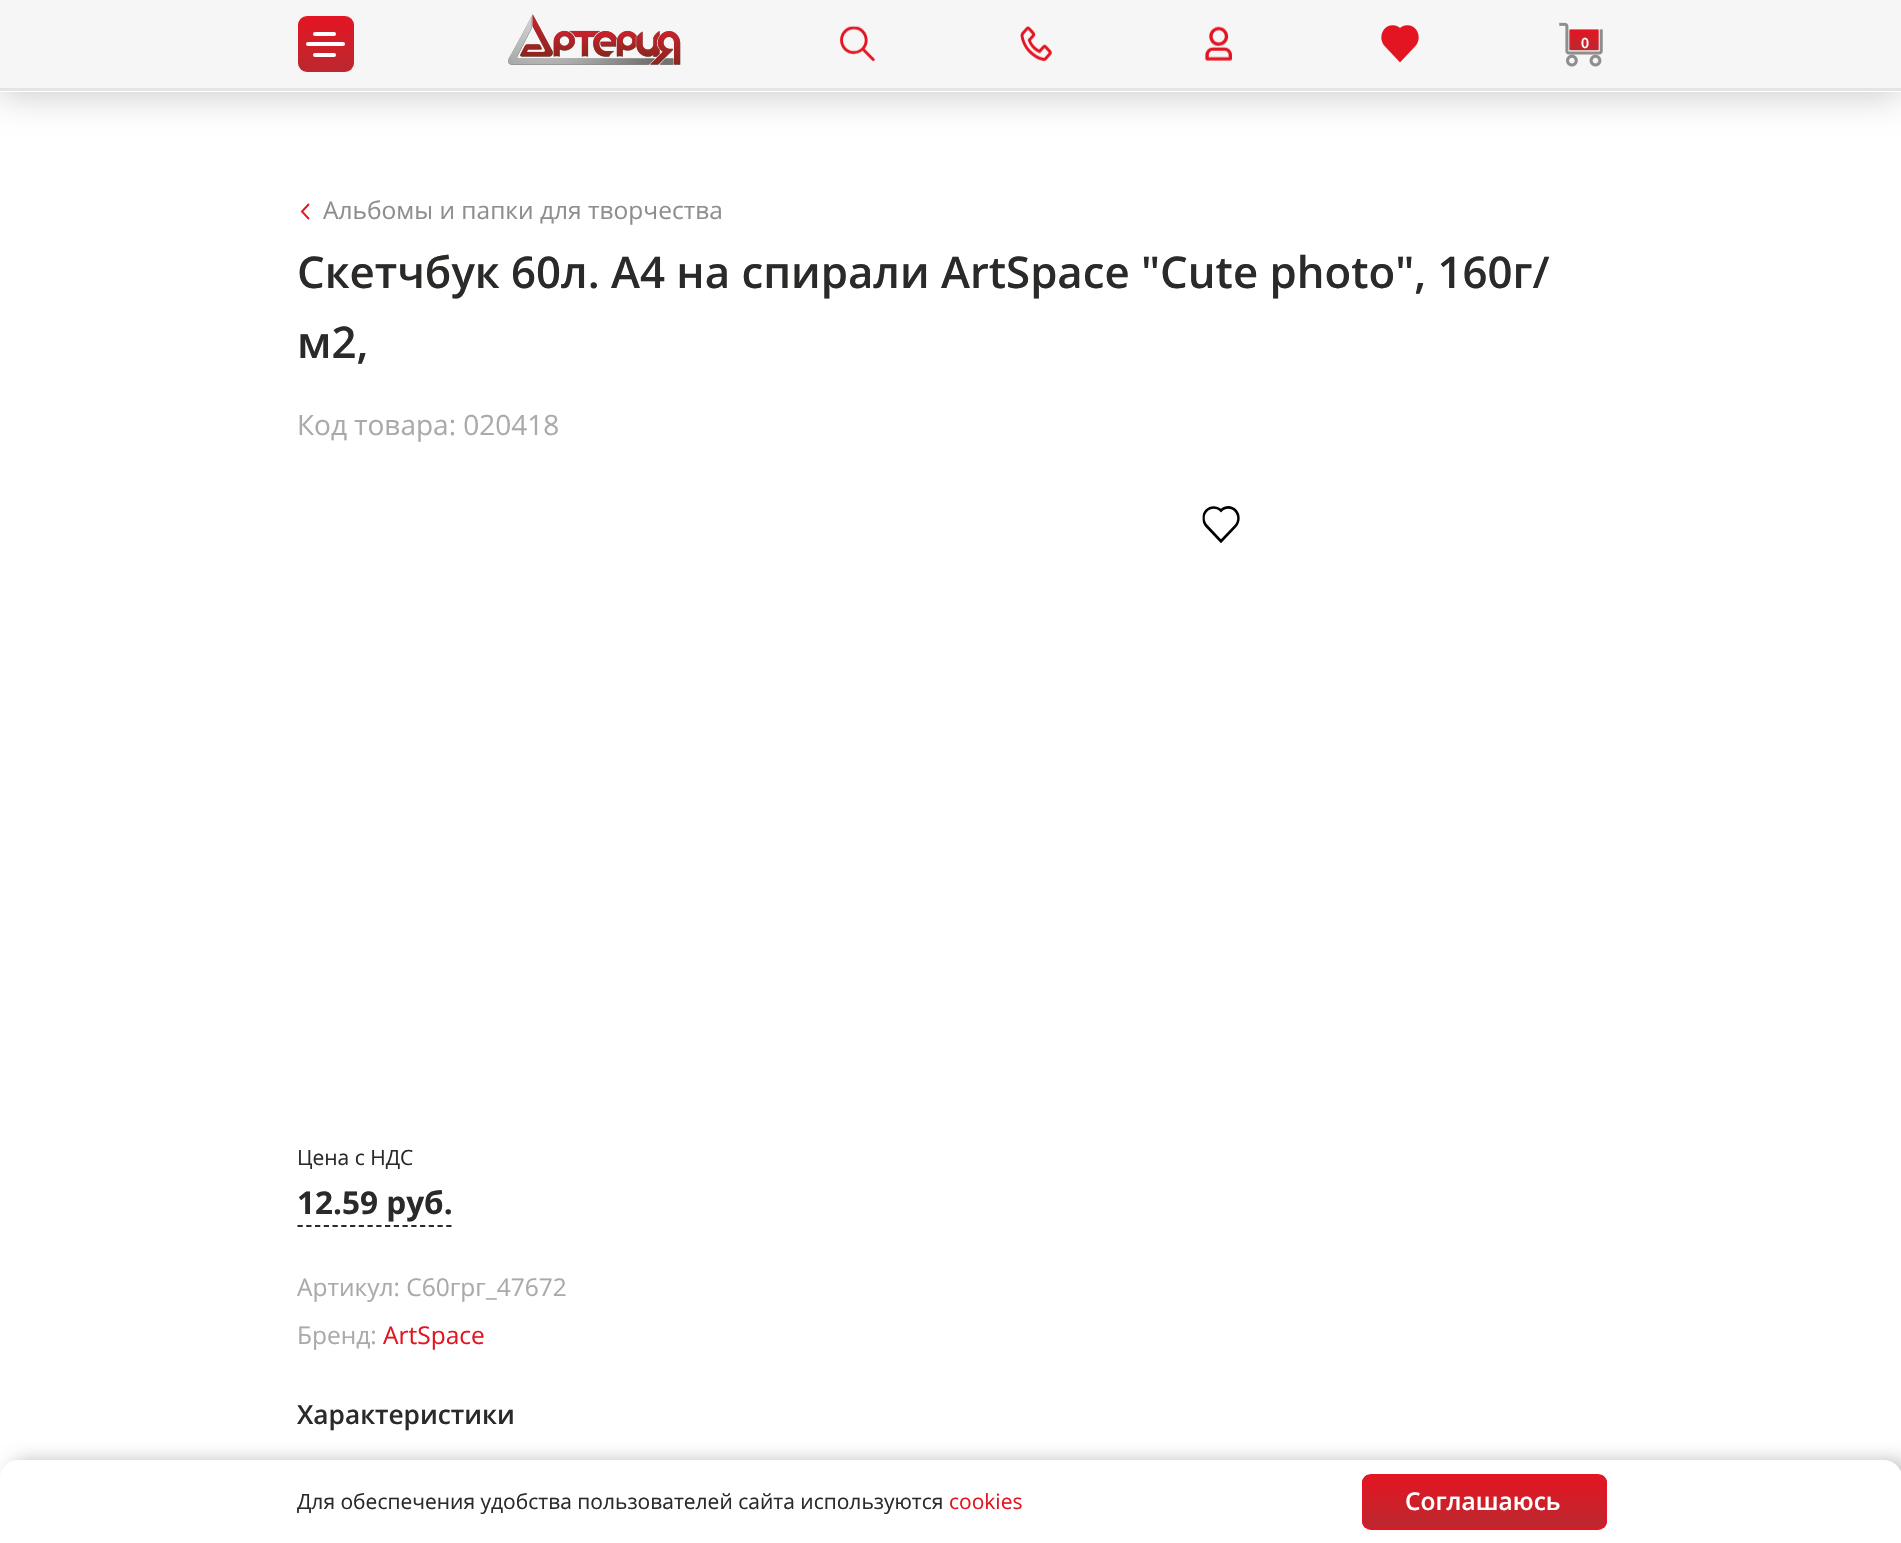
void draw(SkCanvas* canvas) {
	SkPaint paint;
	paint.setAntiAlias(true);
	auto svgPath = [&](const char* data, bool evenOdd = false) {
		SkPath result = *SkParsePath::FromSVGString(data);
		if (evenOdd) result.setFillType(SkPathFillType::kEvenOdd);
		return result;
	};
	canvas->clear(0xffffffff);
	paint.setColor(0x33000000);
	paint.setMaskFilter(SkMaskFilter::MakeBlur(kNormal_SkBlurStyle, 17.5));
	canvas->drawRect(SkRect::MakeXYWH(0, 5, 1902, 91), paint);
	paint.setMaskFilter(nullptr);
	paint.setColor(0xfff6f6f6);
	canvas->drawRect(SkRect::MakeXYWH(0, 0, 1901, 88), paint);
	{
		const SkColor colors[] = {0xffe41522, 0xffbb282f};
		const float stops[] = {0, 1};
		const SkPoint ends[] = {{326, 16}, {326, 72}};
		paint.setShader(SkGradientShader::MakeLinear(ends, colors, stops, 2, SkTileMode::kClamp));
		paint.setAlpha(255);
	}
	canvas->drawRoundRect(SkRect::MakeXYWH(298, 16, 56, 56), 9, 9, paint);
	paint.setShader(nullptr);
	paint.setColor(0xffffffff);
	canvas->drawRoundRect(SkRect::MakeXYWH(313, 32, 23, 4), 2, 2, paint);
	canvas->drawRoundRect(SkRect::MakeXYWH(306, 42, 39, 4), 2, 2, paint);
	canvas->drawRoundRect(SkRect::MakeXYWH(313, 53, 23, 4), 2, 2, paint);
	canvas->drawImageRect(SkImages::DeferredFromEncodedData(SkData::MakeFromFileName("img1.png")), SkRect::MakeXYWH(508, 14, 173, 51), SkSamplingOptions());
	canvas->drawImageRect(SkImages::DeferredFromEncodedData(SkData::MakeFromFileName("img2.png")), SkRect::MakeXYWH(840, 25, 35, 37), SkSamplingOptions());
	canvas->drawImageRect(SkImages::DeferredFromEncodedData(SkData::MakeFromFileName("img3.png")), SkRect::MakeXYWH(1020, 25, 32, 37), SkSamplingOptions());
	canvas->drawImageRect(SkImages::DeferredFromEncodedData(SkData::MakeFromFileName("img4.png")), SkRect::MakeXYWH(1205, 26, 27, 35), SkSamplingOptions());
	canvas->drawImageRect(SkImages::DeferredFromEncodedData(SkData::MakeFromFileName("img5.png")), SkRect::MakeXYWH(1381, 25, 38, 38), SkSamplingOptions());
	canvas->drawImageRect(SkImages::DeferredFromEncodedData(SkData::MakeFromFileName("img6.png")), SkRect::MakeXYWH(1559, 22, 44, 45), SkSamplingOptions());
	SkFont f1(fontMgr->matchFamilyStyle("Open Sans", SkFontStyle(600, SkFontStyle::kNormal_Width, SkFontStyle::kUpright_Slant)), 14);
	f1.setSubpixel(true);
	canvas->drawString("0", 1581, 48, f1, paint);
	canvas->drawRect(SkRect::MakeXYWH(0, 91, 1901, 1), paint);
	paint.setColor(0xffe4e4e4);
	canvas->drawRect(SkRect::MakeXYWH(0, 88, 1901, 3), paint);
	paint.setStroke(true);
	paint.setStrokeWidth(1.9);
	paint.setStrokeCap(SkPaint::kRound_Cap);
	paint.setColor(0xffe41522);
	canvas->drawPath(svgPath("M308.5 204.5L302 211.5L308.5 218.5"), paint);
	SkFont f2(fontMgr->matchFamilyStyle("Open Sans", SkFontStyle::Normal()), 24.5);
	f2.setSubpixel(true);
	paint.setStroke(false);
	paint.setColor(0xff8f8e8e);
	canvas->drawString("Альбомы и папки для творчества", 323, 219, f2, paint);
	SkFont f3(fontMgr->matchFamilyStyle("Open Sans", SkFontStyle(600, SkFontStyle::kNormal_Width, SkFontStyle::kUpright_Slant)), 43.75);
	f3.setSubpixel(true);
	paint.setColor(0xff2b2a29);
	canvas->drawString("Скетчбук 60л. А4 на спирали ArtSpace \"Cute photo\", 160г/", 297, 288, f3, paint);
	canvas->drawString("м2,", 297, 358, f3, paint);
	SkFont f4(fontMgr->matchFamilyStyle("Open Sans", SkFontStyle::Normal()), 28);
	f4.setSubpixel(true);
	paint.setColor(0xffaaaaaa);
	canvas->drawString("Код товара: 020418", 297, 435, f4, paint);
	canvas->drawImageRect(SkImages::DeferredFromEncodedData(SkData::MakeFromFileName("img7.png")), SkRect::MakeXYWH(1202, 506, 38, 38), SkSamplingOptions());
	SkFont f5(fontMgr->matchFamilyStyle("Open Sans", SkFontStyle::Normal()), 21);
	f5.setSubpixel(true);
	paint.setColor(0xff2b2a29);
	canvas->drawString("Цена с НДС", 297, 1165, f5, paint);
	paint.setStroke(true);
	paint.setStrokeWidth(1.8);
	paint.setStrokeCap(SkPaint::kButt_Cap);
	paint.setPathEffect(SkDashPathEffect::Make({{5.25f, 3.5f}}, 0));
	canvas->drawPath(svgPath("M297.5 1226H451.5"), paint);
	paint.setPathEffect(nullptr);
	SkFont f6(fontMgr->matchFamilyStyle("Open Sans", SkFontStyle::Bold()), 31.5);
	f6.setSubpixel(true);
	paint.setStroke(false);
	canvas->drawString("12.59 руб.", 297, 1214, f6, paint);
	paint.setColor(0xffaaaaaa);
	canvas->drawString("Артикул: С60грг_47672", 297, 1296, f2, paint);
	canvas->drawString("Бренд:", 297, 1344, f2, paint);
	paint.setColor(0xffe41522);
	canvas->drawString("ArtSpace", 383, 1344, f2, paint);
	SkFont f7(fontMgr->matchFamilyStyle("Open Sans", SkFontStyle(600, SkFontStyle::kNormal_Width, SkFontStyle::kUpright_Slant)), 26.25);
	f7.setSubpixel(true);
	paint.setColor(0xff2b2a29);
	canvas->drawString("Характеристики", 297, 1424, f7, paint);
	paint.setColor(0x40000000);
	paint.setMaskFilter(SkMaskFilter::MakeBlur(kNormal_SkBlurStyle, 9));
	canvas->drawRoundRect(SkRect::MakeXYWH(9, 1460, 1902, 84), 18, 18, paint);
	paint.setMaskFilter(nullptr);
	paint.setColor(0xffffffff);
	canvas->drawPath(svgPath("M18 1460H1884C1894 1460 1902 1468 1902 1478V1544H0V1478C0 1468 8 1460 18 1460Z"), paint);
	paint.setColor(0xff2b2a29);
	canvas->drawString("Для обеспечения удобства пользователей сайта используются", 297, 1509, f5, paint);
	paint.setColor(0xffe41522);
	canvas->drawString("cookies", 949, 1509, f5, paint);
	canvas->save();
	canvas->clipPath(svgPath("M1371 1474H1598C1603 1474 1607 1478 1607 1483V1521C1607 1526 1603 1530 1598 1530H1371C1366 1530 1362 1526 1362 1521V1483C1362 1478 1366 1474 1371 1474Z"), true);
	{
		const SkColor colors[] = {0xffe41522, 0xffbb282f};
		const float stops[] = {0, 1};
		const SkPoint ends[] = {{1484, 1475}, {1484, 1528}};
		paint.setShader(SkGradientShader::MakeLinear(ends, colors, stops, 2, SkTileMode::kClamp));
		paint.setAlpha(255);
	}
	canvas->drawRect(SkRect::MakeXYWH(1362, 1475, 245, 53), paint);
	canvas->restore();
	paint.setStroke(true);
	paint.setStrokeWidth(2);
	paint.setShader(nullptr);
	paint.setColor(0xffe41522);
	canvas->drawRoundRect(SkRect::MakeXYWH(1363, 1475, 243, 54), 8, 8, paint);
	SkFont f8(fontMgr->matchFamilyStyle("Open Sans", SkFontStyle(600, SkFontStyle::kNormal_Width, SkFontStyle::kUpright_Slant)), 24.5);
	f8.setSubpixel(true);
	paint.setStroke(false);
	paint.setColor(0xffffffff);
	canvas->drawString("Соглашаюсь", 1405, 1510, f8, paint);
}
